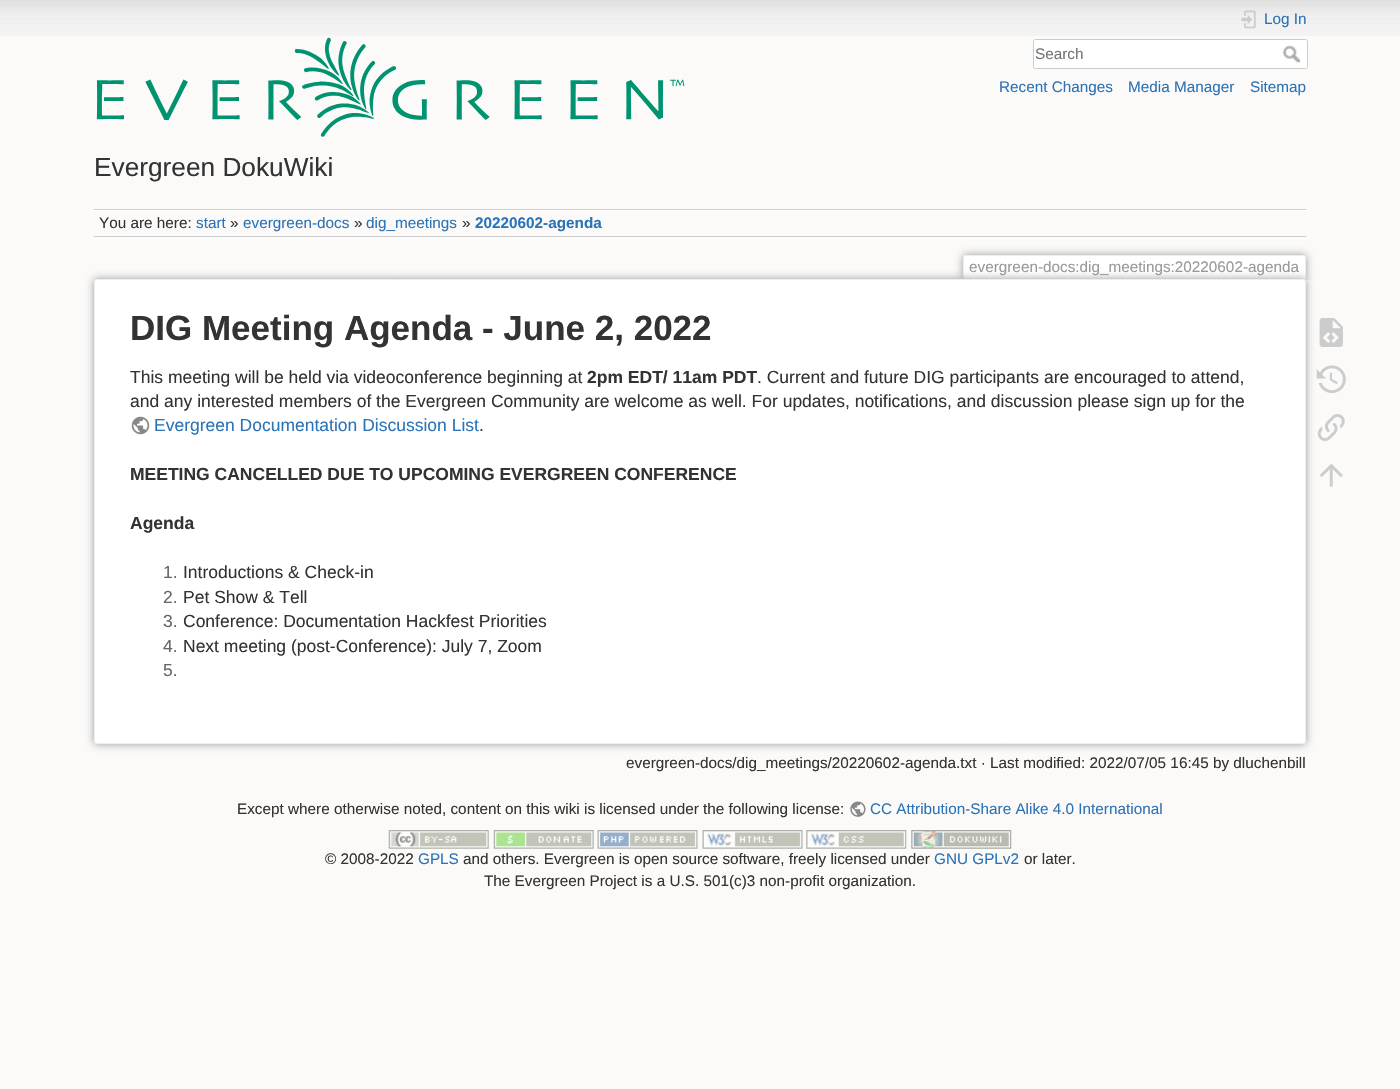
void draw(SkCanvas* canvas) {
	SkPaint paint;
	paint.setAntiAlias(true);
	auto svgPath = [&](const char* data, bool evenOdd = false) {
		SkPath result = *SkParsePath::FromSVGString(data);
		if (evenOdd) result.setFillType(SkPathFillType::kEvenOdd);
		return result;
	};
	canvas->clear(0xfffbfaf9);
	canvas->drawImageRect(SkImages::DeferredFromEncodedData(SkData::MakeFromFileName("img1.png")), SkRect::MakeXYWH(0, 0, 1400, 36), SkSamplingOptions());
	canvas->drawImageRect(SkImages::DeferredFromEncodedData(SkData::MakeFromFileName("img2.png")), SkRect::MakeXYWH(1241, 10, 15, 19), SkSamplingOptions());
	SkFont f1(fontMgr->matchFamilyStyle("Liberation Sans", SkFontStyle::Normal()), 15.3);
	f1.setSubpixel(true);
	paint.setColor(0xff2b73b7);
	canvas->drawString("Log In", 1264, 24, f1, paint);
	paint.setColor(0xffffffff);
	canvas->drawRoundRect(SkRect::MakeXYWH(1033.5, 39.5, 274, 29), 2, 2, paint);
	paint.setStroke(true);
	paint.setStrokeWidth(1);
	paint.setColor(0xffcccccc);
	canvas->drawRoundRect(SkRect::MakeXYWH(1033.5, 39.5, 274, 29), 2, 2, paint);
	paint.setStroke(false);
	paint.setColor(0xff757575);
	canvas->drawString("Search", 1035, 59, f1, paint);
	canvas->drawImageRect(SkImages::DeferredFromEncodedData(SkData::MakeFromFileName("img3.png")), SkRect::MakeXYWH(1282, 45, 18, 18), SkSamplingOptions());
	paint.setColor(0xff2b73b7);
	canvas->drawString("Recent Changes", 999, 92, f1, paint);
	canvas->drawString("Media Manager", 1128, 92, f1, paint);
	canvas->drawString("Sitemap", 1250, 92, f1, paint);
	canvas->drawImageRect(SkImages::DeferredFromEncodedData(SkData::MakeFromFileName("img4.png")), SkRect::MakeXYWH(96, 37, 589, 100), SkSamplingOptions());
	SkFont f2(fontMgr->matchFamilyStyle("Liberation Sans", SkFontStyle::Normal()), 26.25);
	f2.setSubpixel(true);
	paint.setColor(0xff333333);
	canvas->drawString("Evergreen DokuWiki", 94, 176, f2, paint);
	paint.setColor(0xffcccccc);
	canvas->drawRect(SkRect::MakeXYWH(94, 209, 1212, 1), paint);
	paint.setColor(0xffffffff);
	canvas->drawRect(SkRect::MakeXYWH(94, 238, 1212, 1), paint);
	canvas->drawRect(SkRect::MakeXYWH(94, 210, 1212, 1), paint);
	paint.setColor(0xffcccccc);
	canvas->drawRect(SkRect::MakeXYWH(94, 236, 1212, 1), paint);
	paint.setColor(0xff333333);
	canvas->drawString("You are here:", 99, 228, f1, paint);
	paint.setColor(0xff2b73b7);
	canvas->drawString("start", 196, 228, f1, paint);
	paint.setColor(0xff333333);
	canvas->drawString("»", 230, 228, f1, paint);
	paint.setColor(0xff2b73b7);
	canvas->drawString("evergreen-docs", 243, 228, f1, paint);
	paint.setColor(0xff333333);
	canvas->drawString("»", 354, 228, f1, paint);
	paint.setColor(0xff2b73b7);
	canvas->drawString("dig_meetings", 366, 228, f1, paint);
	paint.setColor(0xff333333);
	canvas->drawString("»", 462, 228, f1, paint);
	SkFont f3(fontMgr->matchFamilyStyle("Liberation Sans", SkFontStyle::Bold()), 15.3);
	f3.setSubpixel(true);
	paint.setColor(0xff2b73b7);
	canvas->drawString("20220602-agenda", 475, 228, f3, paint);
	canvas->save();
	canvas->clipRect(SkRect::MakeXYWH(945, 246, 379, 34));
	paint.setColor(0xff999999);
	paint.setMaskFilter(SkMaskFilter::MakeBlur(kNormal_SkBlurStyle, 4));
	canvas->drawRoundRect(SkRect::MakeXYWH(963, 255, 343, 25), 2.5, 2.5, paint);
	paint.setMaskFilter(nullptr);
	canvas->restore();
	paint.setColor(0xffffffff);
	canvas->drawPath(svgPath("M965 256H1304C1304.5 256 1305 256.5 1305 257V280H964V257C964 256.5 964.5 256 965 256Z"), paint);
	paint.setColor(0xffeeeeee);
	canvas->drawRect(SkRect::MakeXYWH(964, 255, 341, 1), paint);
	canvas->drawRect(SkRect::MakeXYWH(1305, 256, 1, 24), paint);
	canvas->drawRect(SkRect::MakeXYWH(963, 256, 1, 24), paint);
	paint.setColor(0xff999999);
	canvas->drawString("evergreen-docs:dig_meetings:20220602-agenda", 969, 272, f1, paint);
	paint.setMaskFilter(SkMaskFilter::MakeBlur(kNormal_SkBlurStyle, 4.5));
	canvas->drawRoundRect(SkRect::MakeXYWH(94, 279, 1212, 465), 2.5, 2.5, paint);
	paint.setMaskFilter(nullptr);
	paint.setColor(0xffffffff);
	canvas->drawRoundRect(SkRect::MakeXYWH(94.5, 279.5, 1211, 464), 2, 2, paint);
	paint.setStroke(true);
	paint.setColor(0xffeeeeee);
	canvas->drawRoundRect(SkRect::MakeXYWH(94.5, 279.5, 1211, 464), 2, 2, paint);
	SkFont f4(fontMgr->matchFamilyStyle("Liberation Sans", SkFontStyle::Bold()), 35);
	f4.setSubpixel(true);
	paint.setStroke(false);
	paint.setColor(0xff333333);
	canvas->drawString("DIG Meeting Agenda - June 2, 2022", 130, 340, f4, paint);
	SkFont f5(fontMgr->matchFamilyStyle("Liberation Sans", SkFontStyle::Normal()), 17.5);
	f5.setSubpixel(true);
	canvas->drawString("This meeting will be held via videoconference beginning at", 130, 383, f5, paint);
	SkFont f6(fontMgr->matchFamilyStyle("Liberation Sans", SkFontStyle::Bold()), 17.5);
	f6.setSubpixel(true);
	canvas->drawString("2pm EDT/ 11am PDT", 587, 383, f6, paint);
	canvas->drawString(". Current and future DIG participants are encouraged to attend,", 757, 383, f5, paint);
	canvas->drawString("and any interested members of the Evergreen Community are welcome as well. For updates, notifications, and discussion please sign up for the", 130, 407, f5, paint);
	canvas->drawImageRect(SkImages::DeferredFromEncodedData(SkData::MakeFromFileName("img5.png")), SkRect::MakeXYWH(131, 416, 19, 19), SkSamplingOptions());
	paint.setColor(0xff2b73b7);
	canvas->drawString("Evergreen Documentation Discussion List", 154, 431, f5, paint);
	paint.setColor(0xff333333);
	canvas->drawString(".", 479, 431, f5, paint);
	canvas->drawString("MEETING CANCELLED DUE TO UPCOMING EVERGREEN CONFERENCE", 130, 480, f6, paint);
	canvas->drawString("Agenda", 130, 529, f6, paint);
	paint.setColor(0xff666666);
	canvas->drawString("1.", 163, 578, f5, paint);
	paint.setColor(0xff333333);
	canvas->drawString("Introductions & Check-in", 183, 578, f5, paint);
	paint.setColor(0xff666666);
	canvas->drawString("2.", 163, 603, f5, paint);
	paint.setColor(0xff333333);
	canvas->drawString("Pet Show & Tell", 183, 603, f5, paint);
	paint.setColor(0xff666666);
	canvas->drawString("3.", 163, 627, f5, paint);
	paint.setColor(0xff333333);
	canvas->drawString("Conference: Documentation Hackfest Priorities", 183, 627, f5, paint);
	paint.setColor(0xff666666);
	canvas->drawString("4.", 163, 652, f5, paint);
	paint.setColor(0xff333333);
	canvas->drawString("Next meeting (post-Conference): July 7, Zoom", 183, 652, f5, paint);
	paint.setColor(0xff666666);
	canvas->drawString("5.", 163, 676, f5, paint);
	paint.setColor(0xff333333);
	canvas->drawString("evergreen-docs/dig_meetings/20220602-agenda.txt · Last modified: 2022/07/05 16:45 by dluchenbill", 626, 768, f1, paint);
	canvas->drawImageRect(SkImages::DeferredFromEncodedData(SkData::MakeFromFileName("img6.png")), SkRect::MakeXYWH(1319, 318, 24, 29), SkSamplingOptions());
	canvas->drawImageRect(SkImages::DeferredFromEncodedData(SkData::MakeFromFileName("img7.png")), SkRect::MakeXYWH(1316, 365, 30, 29), SkSamplingOptions());
	canvas->drawImageRect(SkImages::DeferredFromEncodedData(SkData::MakeFromFileName("img8.png")), SkRect::MakeXYWH(1317, 414, 28, 27), SkSamplingOptions());
	canvas->drawImageRect(SkImages::DeferredFromEncodedData(SkData::MakeFromFileName("img9.png")), SkRect::MakeXYWH(1320, 463, 23, 24), SkSamplingOptions());
	canvas->drawString("Except where otherwise noted, content on this wiki is licensed under the following license:", 237, 814, f1, paint);
	canvas->drawImageRect(SkImages::DeferredFromEncodedData(SkData::MakeFromFileName("img10.png")), SkRect::MakeXYWH(850, 801, 16, 16), SkSamplingOptions());
	paint.setColor(0xff2b73b7);
	canvas->drawString("CC Attribution-Share Alike 4.0 International", 870, 814, f1, paint);
	canvas->drawImageRect(SkImages::DeferredFromEncodedData(SkData::MakeFromFileName("img11.png")), SkRect::MakeXYWH(388, 830, 101, 19), SkSamplingOptions());
	canvas->drawImageRect(SkImages::DeferredFromEncodedData(SkData::MakeFromFileName("img12.png")), SkRect::MakeXYWH(493, 830, 101, 19), SkSamplingOptions());
	canvas->drawImageRect(SkImages::DeferredFromEncodedData(SkData::MakeFromFileName("img13.png")), SkRect::MakeXYWH(597, 830, 101, 19), SkSamplingOptions());
	canvas->drawImageRect(SkImages::DeferredFromEncodedData(SkData::MakeFromFileName("img14.png")), SkRect::MakeXYWH(702, 830, 101, 19), SkSamplingOptions());
	canvas->drawImageRect(SkImages::DeferredFromEncodedData(SkData::MakeFromFileName("img15.png")), SkRect::MakeXYWH(806, 830, 101, 19), SkSamplingOptions());
	canvas->drawImageRect(SkImages::DeferredFromEncodedData(SkData::MakeFromFileName("img16.png")), SkRect::MakeXYWH(911, 830, 101, 19), SkSamplingOptions());
	paint.setColor(0xff333333);
	canvas->drawString("© 2008-2022", 325, 864, f1, paint);
	paint.setColor(0xff2b73b7);
	canvas->drawString("GPLS", 418, 864, f1, paint);
	paint.setColor(0xff333333);
	canvas->drawString("and others. Evergreen is open source software, freely licensed under", 463, 864, f1, paint);
	paint.setColor(0xff2b73b7);
	canvas->drawString("GNU GPLv2", 934, 864, f1, paint);
	paint.setColor(0xff333333);
	canvas->drawString("or later.", 1024, 864, f1, paint);
	canvas->drawString("The Evergreen Project is a U.S. 501(c)3 non-profit organization.", 484, 886, f1, paint);
}
